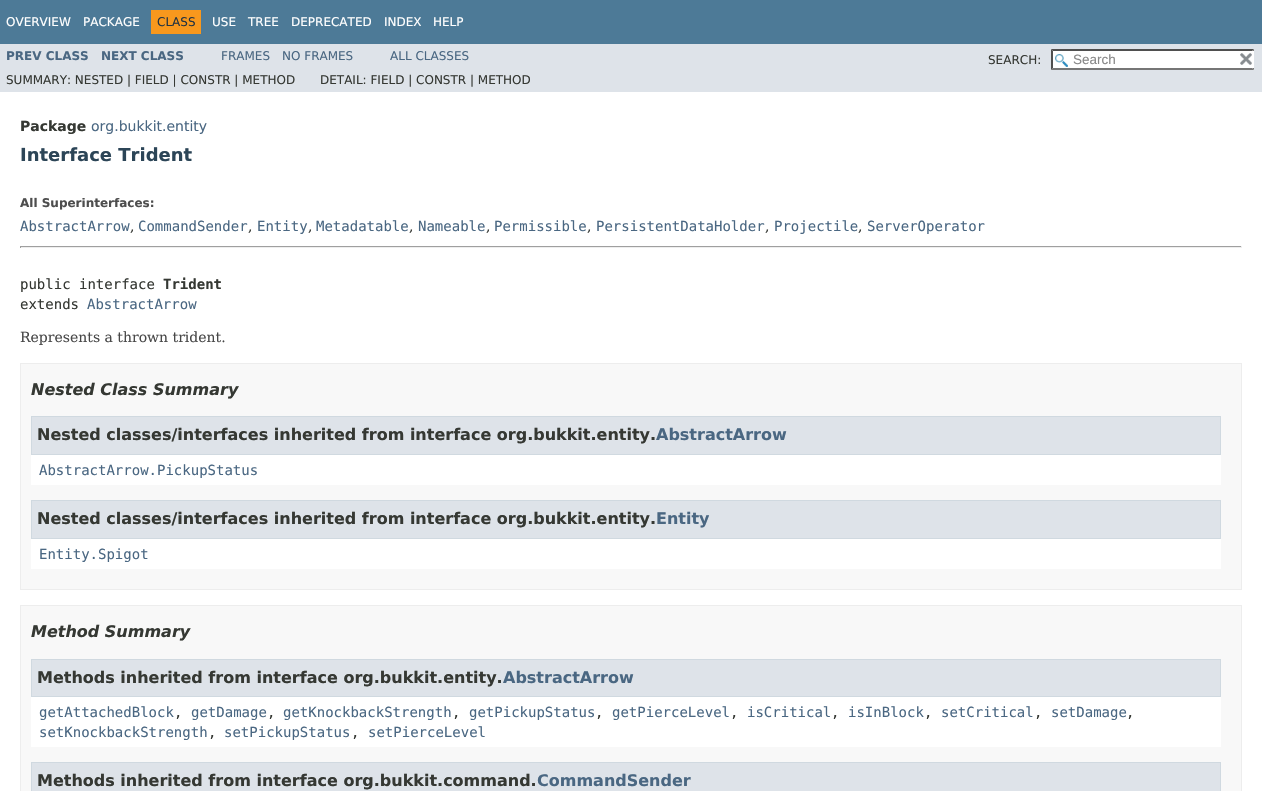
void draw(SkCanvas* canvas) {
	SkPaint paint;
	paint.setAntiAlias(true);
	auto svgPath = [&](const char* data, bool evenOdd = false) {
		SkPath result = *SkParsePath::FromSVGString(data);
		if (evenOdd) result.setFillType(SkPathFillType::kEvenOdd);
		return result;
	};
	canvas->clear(0xffffffff);
	paint.setColor(0xff4d7a97);
	canvas->drawRect(SkRect::MakeXYWH(0, 0, 1262, 44), paint);
	SkFont f1(fontMgr->matchFamilyStyle("DejaVu Sans", SkFontStyle::Normal()), 12);
	f1.setSubpixel(true);
	paint.setColor(0xffffffff);
	canvas->drawString("OVERVIEW", 6, 26, f1, paint);
	canvas->drawString("PACKAGE", 83, 26, f1, paint);
	paint.setColor(0xfff8981d);
	canvas->drawRect(SkRect::MakeXYWH(151, 10, 50, 24), paint);
	paint.setColor(0xff253441);
	canvas->drawString("CLASS", 157, 26, f1, paint);
	paint.setColor(0xffffffff);
	canvas->drawString("USE", 212, 26, f1, paint);
	canvas->drawString("TREE", 248, 26, f1, paint);
	canvas->drawString("DEPRECATED", 291, 26, f1, paint);
	canvas->drawString("INDEX", 384, 26, f1, paint);
	canvas->drawString("HELP", 433, 26, f1, paint);
	paint.setColor(0xffdee3e9);
	canvas->drawRect(SkRect::MakeXYWH(0, 44, 1262, 48), paint);
	SkFont f2(fontMgr->matchFamilyStyle("DejaVu Sans", SkFontStyle::Bold()), 12);
	f2.setSubpixel(true);
	paint.setColor(0xff4a6782);
	canvas->drawString("PREV CLASS", 6, 60, f2, paint);
	canvas->drawString("NEXT CLASS", 101, 60, f2, paint);
	canvas->drawString("FRAMES", 221, 60, f1, paint);
	canvas->drawString("NO FRAMES", 282, 60, f1, paint);
	canvas->drawString("ALL CLASSES", 390, 60, f1, paint);
	paint.setColor(0xff353833);
	canvas->drawString("SEARCH:", 988, 64, f1, paint);
	paint.setColor(0xffffffff);
	canvas->drawRect(SkRect::MakeXYWH(1051, 49, 203, 21), paint);
	canvas->drawImageRect(SkImages::DeferredFromEncodedData(SkData::MakeFromFileName("img1.png")), SkRect::MakeXYWH(1055, 54, 13, 13), SkSamplingOptions());
	paint.setColor(0xff4f4f4f);
	canvas->drawPath(svgPath("M1051 49H1254L1252 51H1053Z"), paint);
	paint.setColor(0xff767676);
	canvas->drawPath(svgPath("M1254 49V70L1252 68V51Z"), paint);
	canvas->drawPath(svgPath("M1254 70H1051L1053 68H1252Z"), paint);
	paint.setColor(0xff4f4f4f);
	canvas->drawPath(svgPath("M1051 70V49L1053 51V68Z"), paint);
	SkFont f3(fontMgr->matchFamilyStyle("Liberation Sans", SkFontStyle::Normal()), 13.5);
	f3.setSubpixel(true);
	paint.setColor(0xff888888);
	canvas->drawString("Search", 1073, 64, f3, paint);
	paint.setColor(0xffffffff);
	canvas->drawRect(SkRect::MakeXYWH(1252, 51, 2, 17), paint);
	canvas->drawImageRect(SkImages::DeferredFromEncodedData(SkData::MakeFromFileName("img2.png")), SkRect::MakeXYWH(1240, 53, 12, 12), SkSamplingOptions());
	paint.setColor(0xff353833);
	canvas->drawString("SUMMARY: NESTED | FIELD | CONSTR | METHOD", 6, 84, f1, paint);
	canvas->drawString("DETAIL: FIELD | CONSTR | METHOD", 320, 84, f1, paint);
	SkFont f4(fontMgr->matchFamilyStyle("DejaVu Sans", SkFontStyle::Bold()), 14);
	f4.setSubpixel(true);
	canvas->drawString("Package", 20, 131, f4, paint);
	SkFont f5(fontMgr->matchFamilyStyle("DejaVu Sans", SkFontStyle::Normal()), 14);
	f5.setSubpixel(true);
	paint.setColor(0xff4a6782);
	canvas->drawString("org.bukkit.entity", 91, 131, f5, paint);
	SkFont f6(fontMgr->matchFamilyStyle("DejaVu Sans", SkFontStyle::Bold()), 18);
	f6.setSubpixel(true);
	paint.setColor(0xff2c4557);
	canvas->drawString("Interface Trident", 20, 161, f6, paint);
	paint.setColor(0xff4e4e4e);
	canvas->drawString("All Superinterfaces:", 20, 207, f2, paint);
	SkFont f7(fontMgr->matchFamilyStyle("DejaVu Sans Mono", SkFontStyle::Normal()), 14);
	f7.setSubpixel(true);
	paint.setColor(0xff4a6782);
	canvas->drawString("AbstractArrow", 20, 231, f7, paint);
	SkFont f8(fontMgr->matchFamilyStyle("DejaVu Serif", SkFontStyle::Normal()), 14);
	f8.setSubpixel(true);
	paint.setColor(0xff353833);
	canvas->drawString(",", 130, 231, f8, paint);
	paint.setColor(0xff4a6782);
	canvas->drawString("CommandSender", 138, 231, f7, paint);
	paint.setColor(0xff353833);
	canvas->drawString(",", 248, 231, f8, paint);
	paint.setColor(0xff4a6782);
	canvas->drawString("Entity", 257, 231, f7, paint);
	paint.setColor(0xff353833);
	canvas->drawString(",", 308, 231, f8, paint);
	paint.setColor(0xff4a6782);
	canvas->drawString("Metadatable", 316, 231, f7, paint);
	paint.setColor(0xff353833);
	canvas->drawString(",", 409, 231, f8, paint);
	paint.setColor(0xff4a6782);
	canvas->drawString("Nameable", 418, 231, f7, paint);
	paint.setColor(0xff353833);
	canvas->drawString(",", 486, 231, f8, paint);
	paint.setColor(0xff4a6782);
	canvas->drawString("Permissible", 494, 231, f7, paint);
	paint.setColor(0xff353833);
	canvas->drawString(",", 587, 231, f8, paint);
	paint.setColor(0xff4a6782);
	canvas->drawString("PersistentDataHolder", 596, 231, f7, paint);
	paint.setColor(0xff353833);
	canvas->drawString(",", 765, 231, f8, paint);
	paint.setColor(0xff4a6782);
	canvas->drawString("Projectile", 774, 231, f7, paint);
	paint.setColor(0xff353833);
	canvas->drawString(",", 858, 231, f8, paint);
	paint.setColor(0xff4a6782);
	canvas->drawString("ServerOperator", 867, 231, f7, paint);
	paint.setColor(0xff9f9f9f);
	canvas->drawRect(SkRect::MakeXYWH(20, 246, 1222, 1), paint);
	paint.setColor(0xffeeeeee);
	canvas->drawRect(SkRect::MakeXYWH(1241, 246, 1, 2), paint);
	canvas->drawRect(SkRect::MakeXYWH(20, 247, 1222, 1), paint);
	paint.setColor(0xff9f9f9f);
	canvas->drawRect(SkRect::MakeXYWH(20, 246, 1, 2), paint);
	paint.setColor(0xff353833);
	canvas->drawString("public interface", 20, 289, f7, paint);
	SkFont f9(fontMgr->matchFamilyStyle("DejaVu Sans Mono", SkFontStyle::Bold()), 14);
	f9.setSubpixel(true);
	canvas->drawString("Trident", 163, 289, f9, paint);
	canvas->drawString("extends", 20, 309, f7, paint);
	paint.setColor(0xff4a6782);
	canvas->drawString("AbstractArrow", 87, 309, f7, paint);
	paint.setColor(0xff474747);
	canvas->drawString("Represents a thrown trident.", 20, 342, f8, paint);
	paint.setColor(0xfff8f8f8);
	canvas->drawRect(SkRect::MakeXYWH(20.5, 363.5, 1221, 226), paint);
	paint.setStroke(true);
	paint.setStrokeWidth(1);
	paint.setColor(0xffededed);
	canvas->drawRect(SkRect::MakeXYWH(20.5, 363.5, 1221, 226), paint);
	SkFont f10(fontMgr->matchFamilyStyle("DejaVu Sans", SkFontStyle::BoldItalic()), 16);
	f10.setSubpixel(true);
	paint.setStroke(false);
	paint.setColor(0xff353833);
	canvas->drawString("Nested Class Summary", 31, 395, f10, paint);
	paint.setColor(0xffffffff);
	canvas->drawRect(SkRect::MakeXYWH(31, 455, 1190, 30), paint);
	paint.setColor(0xffdee3e9);
	canvas->drawRect(SkRect::MakeXYWH(31.5, 416.5, 1189, 38), paint);
	paint.setStroke(true);
	paint.setColor(0xffd0d9e0);
	canvas->drawRect(SkRect::MakeXYWH(31.5, 416.5, 1189, 38), paint);
	SkFont f11(fontMgr->matchFamilyStyle("DejaVu Sans", SkFontStyle::Bold()), 16);
	f11.setSubpixel(true);
	paint.setStroke(false);
	paint.setColor(0xff353833);
	canvas->drawString("Nested classes/interfaces inherited from interface org.bukkit.entity.", 37, 440, f11, paint);
	paint.setColor(0xff4a6782);
	canvas->drawString("AbstractArrow", 656, 440, f11, paint);
	canvas->drawString("AbstractArrow.PickupStatus", 39, 475, f7, paint);
	paint.setColor(0xffffffff);
	canvas->drawRect(SkRect::MakeXYWH(31, 539, 1190, 30), paint);
	paint.setColor(0xffdee3e9);
	canvas->drawRect(SkRect::MakeXYWH(31.5, 500.5, 1189, 38), paint);
	paint.setStroke(true);
	paint.setColor(0xffd0d9e0);
	canvas->drawRect(SkRect::MakeXYWH(31.5, 500.5, 1189, 38), paint);
	paint.setStroke(false);
	paint.setColor(0xff353833);
	canvas->drawString("Nested classes/interfaces inherited from interface org.bukkit.entity.", 37, 524, f11, paint);
	paint.setColor(0xff4a6782);
	canvas->drawString("Entity", 656, 524, f11, paint);
	canvas->drawString("Entity.Spigot", 39, 559, f7, paint);
	paint.setColor(0xfff8f8f8);
	canvas->drawRect(SkRect::MakeXYWH(20.5, 605.5, 1221, 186), paint);
	paint.setStroke(true);
	paint.setColor(0xffededed);
	canvas->drawRect(SkRect::MakeXYWH(20.5, 605.5, 1221, 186), paint);
	paint.setStroke(false);
	paint.setColor(0xff353833);
	canvas->drawString("Method Summary", 31, 637, f10, paint);
	paint.setColor(0xffffffff);
	canvas->drawRect(SkRect::MakeXYWH(31, 697, 1190, 50), paint);
	paint.setColor(0xffdee3e9);
	canvas->drawRect(SkRect::MakeXYWH(31.5, 659.5, 1189, 37), paint);
	paint.setStroke(true);
	paint.setColor(0xffd0d9e0);
	canvas->drawRect(SkRect::MakeXYWH(31.5, 659.5, 1189, 37), paint);
	paint.setStroke(false);
	paint.setColor(0xff353833);
	canvas->drawString("Methods inherited from interface org.bukkit.entity.", 37, 683, f11, paint);
	paint.setColor(0xff4a6782);
	canvas->drawString("AbstractArrow", 503, 683, f11, paint);
	canvas->drawString("getAttachedBlock", 39, 717, f7, paint);
	paint.setColor(0xff353833);
	canvas->drawString(",", 174, 717, f7, paint);
	paint.setColor(0xff4a6782);
	canvas->drawString("getDamage", 191, 717, f7, paint);
	paint.setColor(0xff353833);
	canvas->drawString(",", 267, 717, f7, paint);
	paint.setColor(0xff4a6782);
	canvas->drawString("getKnockbackStrength", 283, 717, f7, paint);
	paint.setColor(0xff353833);
	canvas->drawString(",", 452, 717, f7, paint);
	paint.setColor(0xff4a6782);
	canvas->drawString("getPickupStatus", 469, 717, f7, paint);
	paint.setColor(0xff353833);
	canvas->drawString(",", 595, 717, f7, paint);
	paint.setColor(0xff4a6782);
	canvas->drawString("getPierceLevel", 612, 717, f7, paint);
	paint.setColor(0xff353833);
	canvas->drawString(",", 730, 717, f7, paint);
	paint.setColor(0xff4a6782);
	canvas->drawString("isCritical", 747, 717, f7, paint);
	paint.setColor(0xff353833);
	canvas->drawString(",", 831, 717, f7, paint);
	paint.setColor(0xff4a6782);
	canvas->drawString("isInBlock", 848, 717, f7, paint);
	paint.setColor(0xff353833);
	canvas->drawString(",", 924, 717, f7, paint);
	paint.setColor(0xff4a6782);
	canvas->drawString("setCritical", 941, 717, f7, paint);
	paint.setColor(0xff353833);
	canvas->drawString(",", 1034, 717, f7, paint);
	paint.setColor(0xff4a6782);
	canvas->drawString("setDamage", 1051, 717, f7, paint);
	paint.setColor(0xff353833);
	canvas->drawString(",", 1126, 717, f7, paint);
	paint.setColor(0xff4a6782);
	canvas->drawString("setKnockbackStrength", 39, 737, f7, paint);
	paint.setColor(0xff353833);
	canvas->drawString(",", 208, 737, f7, paint);
	paint.setColor(0xff4a6782);
	canvas->drawString("setPickupStatus", 224, 737, f7, paint);
	paint.setColor(0xff353833);
	canvas->drawString(",", 351, 737, f7, paint);
	paint.setColor(0xff4a6782);
	canvas->drawString("setPierceLevel", 368, 737, f7, paint);
	paint.setColor(0xffdee3e9);
	canvas->drawRect(SkRect::MakeXYWH(31.5, 762.5, 1189, 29), paint);
	paint.setStroke(true);
	paint.setColor(0xffd0d9e0);
	canvas->drawRect(SkRect::MakeXYWH(31.5, 762.5, 1189, 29), paint);
	paint.setStroke(false);
	paint.setColor(0xff353833);
	canvas->drawString("Methods inherited from interface org.bukkit.command.", 37, 786, f11, paint);
	paint.setColor(0xff4a6782);
	canvas->drawString("CommandSender", 537, 786, f11, paint);
}
